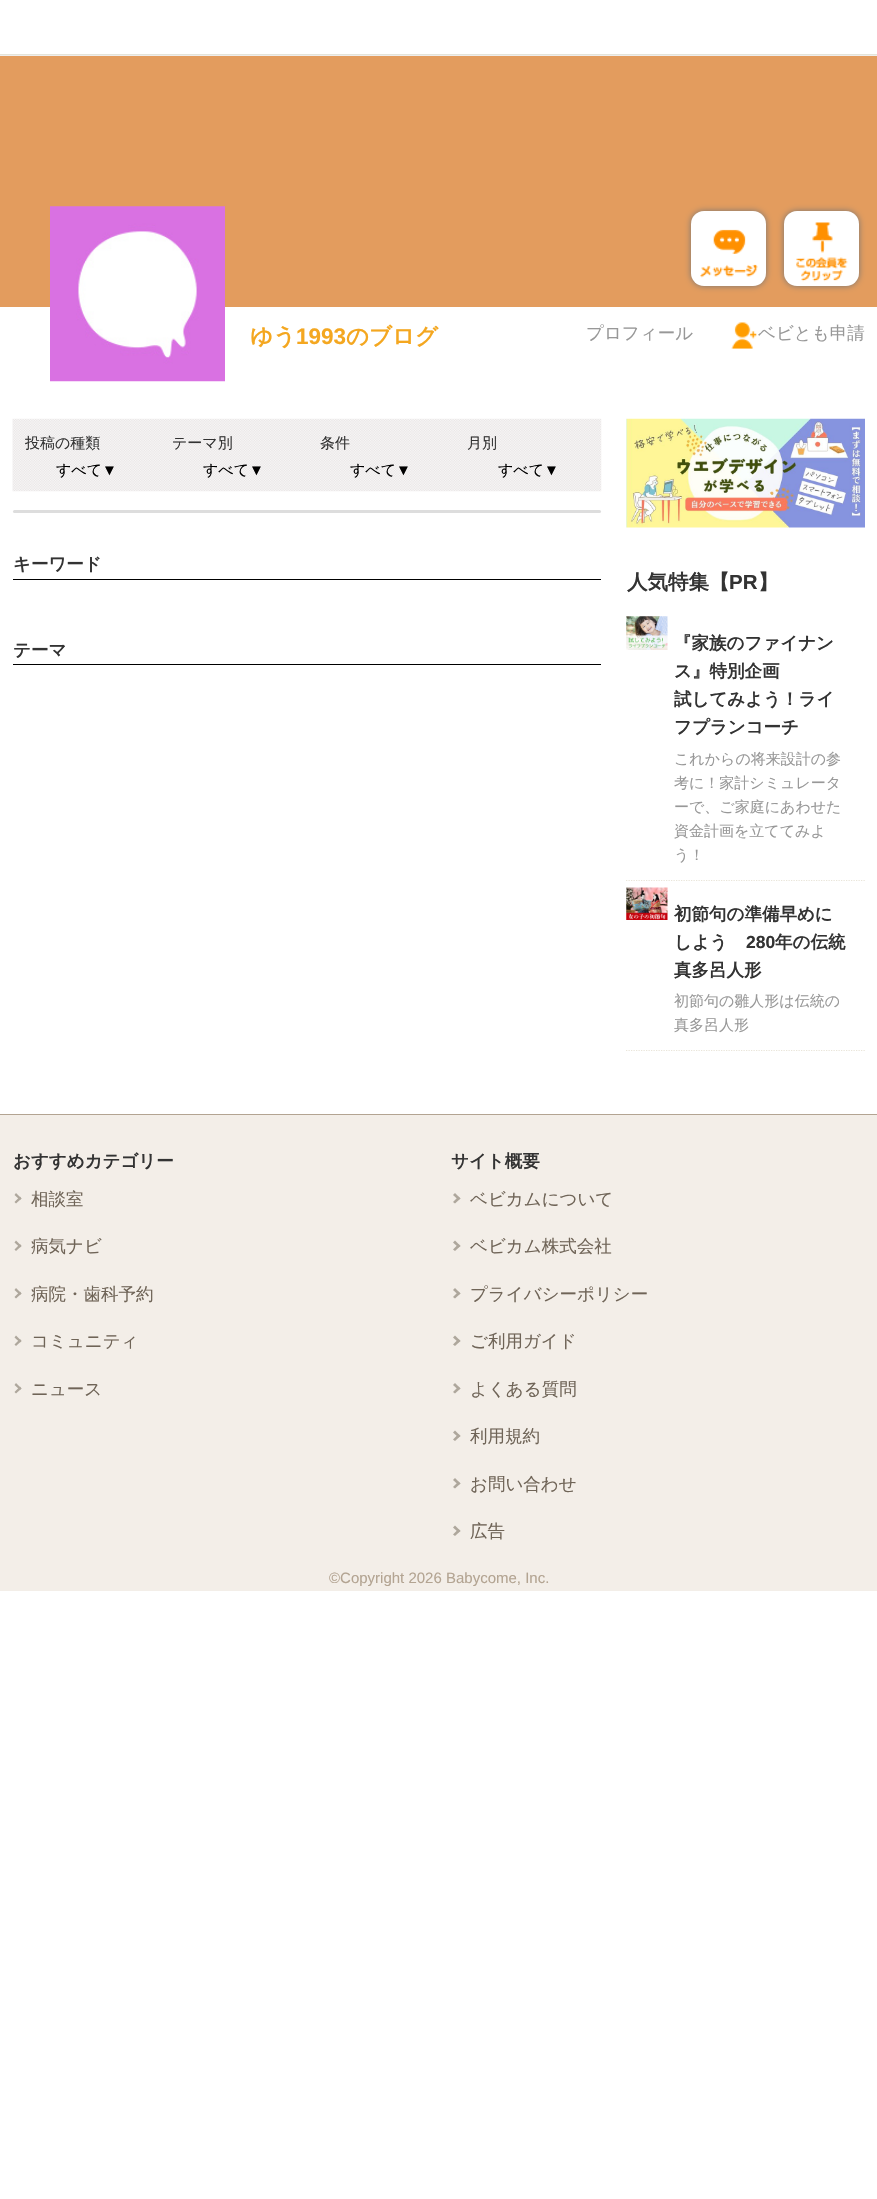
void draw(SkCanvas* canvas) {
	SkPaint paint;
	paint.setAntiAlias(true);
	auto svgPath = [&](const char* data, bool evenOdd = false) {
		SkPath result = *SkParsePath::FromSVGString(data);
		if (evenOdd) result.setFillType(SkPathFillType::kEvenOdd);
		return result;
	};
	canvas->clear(0xffffffff);
	paint.setColor(0xffe5e4d9);
	canvas->drawRect(SkRect::MakeXYWH(0, 54, 877, 1), paint);
	paint.setColor(0xffeeeeee);
	canvas->drawRect(SkRect::MakeXYWH(0, 55, 877, 1), paint);
	paint.setColor(0xffe39c5e);
	canvas->drawRect(SkRect::MakeXYWH(0, 56, 877, 251), paint);
	paint.setColor(0xff757575);
	paint.setMaskFilter(SkMaskFilter::MakeBlur(kNormal_SkBlurStyle, 3));
	canvas->drawRoundRect(SkRect::MakeXYWH(691, 211, 75, 75), 13, 13, paint);
	paint.setMaskFilter(nullptr);
	paint.setColor(0xffffffff);
	canvas->drawRoundRect(SkRect::MakeXYWH(691, 211, 75, 75), 13, 13, paint);
	canvas->drawImageRect(SkImages::DeferredFromEncodedData(SkData::MakeFromFileName("img1.png")), SkRect::MakeXYWH(700, 229, 58, 49), SkSamplingOptions());
	paint.setColor(0xff757575);
	paint.setMaskFilter(SkMaskFilter::MakeBlur(kNormal_SkBlurStyle, 3));
	canvas->drawRoundRect(SkRect::MakeXYWH(784, 211, 75, 75), 13, 13, paint);
	paint.setMaskFilter(nullptr);
	paint.setColor(0xffffffff);
	canvas->drawRoundRect(SkRect::MakeXYWH(784, 211, 75, 75), 13, 13, paint);
	canvas->drawImageRect(SkImages::DeferredFromEncodedData(SkData::MakeFromFileName("img2.png")), SkRect::MakeXYWH(796, 222, 52, 60), SkSamplingOptions());
	canvas->drawImageRect(SkImages::DeferredFromEncodedData(SkData::MakeFromFileName("img3.png")), SkRect::MakeXYWH(50, 206, 175, 176), SkSamplingOptions());
	SkFont f1(fontMgr->matchFamilyStyle("WenQuanYi Zen Hei", SkFontStyle::Bold()), 22.5);
	f1.setSubpixel(true);
	paint.setColor(0xfff4a720);
	canvas->drawString("ゆう", 250, 344, f1, paint);
	SkFont f2(fontMgr->matchFamilyStyle("Liberation Sans", SkFontStyle::Bold()), 22.5);
	f2.setSubpixel(true);
	canvas->drawString("1993", 296, 344, f2, paint);
	canvas->drawString("のブログ", 346, 344, f1, paint);
	SkFont f3(fontMgr->matchFamilyStyle("WenQuanYi Zen Hei", SkFontStyle(500, SkFontStyle::kNormal_Width, SkFontStyle::kUpright_Slant)), 17.5);
	f3.setSubpixel(true);
	paint.setColor(0xff989898);
	canvas->drawString("プロフィール", 586, 339, f3, paint);
	canvas->drawImageRect(SkImages::DeferredFromEncodedData(SkData::MakeFromFileName("img4.png")), SkRect::MakeXYWH(731, 322, 26, 27), SkSamplingOptions());
	canvas->drawString("ベビとも申請", 758, 339, f3, paint);
	canvas->drawImageRect(SkImages::DeferredFromEncodedData(SkData::MakeFromFileName("img5.png")), SkRect::MakeXYWH(12, 418, 590, 74), SkSamplingOptions());
	SkFont f4(fontMgr->matchFamilyStyle("WenQuanYi Zen Hei", SkFontStyle(500, SkFontStyle::kNormal_Width, SkFontStyle::kUpright_Slant)), 15);
	f4.setSubpixel(true);
	paint.setColor(0xff333333);
	canvas->drawString("投稿の種類", 25, 448, f4, paint);
	paint.setColor(0xff000000);
	canvas->drawString("すべて", 56, 475, f4, paint);
	SkFont f5(fontMgr->matchFamilyStyle("Liberation Sans", SkFontStyle::Normal()), 15);
	f5.setSubpixel(true);
	canvas->drawString("▼", 102, 475, f5, paint);
	paint.setColor(0xff333333);
	canvas->drawString("テーマ別", 172, 448, f4, paint);
	paint.setColor(0xff000000);
	canvas->drawString("すべて", 203, 475, f4, paint);
	canvas->drawString("▼", 249, 475, f5, paint);
	paint.setColor(0xff333333);
	canvas->drawString("条件", 320, 448, f4, paint);
	paint.setColor(0xff000000);
	canvas->drawString("すべて", 350, 475, f4, paint);
	canvas->drawString("▼", 396, 475, f5, paint);
	paint.setColor(0xff333333);
	canvas->drawString("月別", 467, 448, f4, paint);
	paint.setColor(0xff000000);
	canvas->drawString("すべて", 498, 475, f4, paint);
	canvas->drawString("▼", 544, 475, f5, paint);
	paint.setColor(0xffdddddd);
	canvas->drawRoundRect(SkRect::MakeXYWH(13, 510, 588, 3), 1.5, 1.5, paint);
	paint.setColor(0xff000000);
	canvas->drawRect(SkRect::MakeXYWH(13, 579, 588, 1), paint);
	SkFont f6(fontMgr->matchFamilyStyle("WenQuanYi Zen Hei", SkFontStyle::Bold()), 17.5);
	f6.setSubpixel(true);
	paint.setColor(0xff333333);
	canvas->drawString("キーワード", 13, 570, f6, paint);
	paint.setColor(0xff000000);
	canvas->drawRect(SkRect::MakeXYWH(13, 664, 588, 1), paint);
	paint.setColor(0xff333333);
	canvas->drawString("テーマ", 13, 656, f6, paint);
	canvas->drawImageRect(SkImages::DeferredFromEncodedData(SkData::MakeFromFileName("img6.png")), SkRect::MakeXYWH(626, 418, 239, 110), SkSamplingOptions());
	SkFont f7(fontMgr->matchFamilyStyle("WenQuanYi Zen Hei", SkFontStyle::Bold()), 20.5);
	f7.setSubpixel(true);
	canvas->drawString("人気特集【", 627, 589, f7, paint);
	SkFont f8(fontMgr->matchFamilyStyle("Liberation Sans", SkFontStyle::Bold()), 20.5);
	f8.setSubpixel(true);
	canvas->drawString("PR", 729, 589, f8, paint);
	canvas->drawString("】", 758, 589, f7, paint);
	paint.setStroke(true);
	paint.setStrokeWidth(1.2);
	paint.setColor(0xffe9e5d9);
	paint.setPathEffect(SkDashPathEffect::Make({{1.25f, 1.25f}}, 0));
	canvas->drawPath(svgPath("M626 880.5H865"), paint);
	paint.setPathEffect(nullptr);
	canvas->drawImageRect(SkImages::DeferredFromEncodedData(SkData::MakeFromFileName("img7.png")), SkRect::MakeXYWH(626, 616, 42, 34), SkSamplingOptions());
	paint.setStroke(false);
	paint.setColor(0xff333333);
	canvas->drawString("『家族のファイナン", 674, 649, f6, paint);
	canvas->drawString("ス』特別企画", 674, 677, f6, paint);
	canvas->drawString("試してみよう！ライ", 674, 705, f6, paint);
	canvas->drawString("フプランコーチ", 674, 733, f6, paint);
	paint.setColor(0xff989898);
	canvas->drawString("これからの将来設計の参", 674, 764, f4, paint);
	canvas->drawString("考に！家計シミュレータ", 674, 788, f4, paint);
	canvas->drawString("ーで、ご家庭にあわせた", 674, 812, f4, paint);
	canvas->drawString("資金計画を立ててみよ", 674, 836, f4, paint);
	canvas->drawString("う！", 674, 860, f4, paint);
	paint.setStroke(true);
	paint.setColor(0xffe9e5d9);
	paint.setPathEffect(SkDashPathEffect::Make({{1.25f, 1.25f}}, 0));
	canvas->drawPath(svgPath("M626 1050.5H865"), paint);
	paint.setPathEffect(nullptr);
	canvas->drawImageRect(SkImages::DeferredFromEncodedData(SkData::MakeFromFileName("img8.png")), SkRect::MakeXYWH(626, 887, 42, 33), SkSamplingOptions());
	paint.setStroke(false);
	paint.setColor(0xff333333);
	canvas->drawString("初節句の準備早めに", 674, 920, f6, paint);
	canvas->drawString("しよう", 674, 948, f6, paint);
	SkFont f9(fontMgr->matchFamilyStyle("Liberation Sans", SkFontStyle::Bold()), 17.5);
	f9.setSubpixel(true);
	canvas->drawString("280", 746, 948, f9, paint);
	canvas->drawString("年の伝統", 775, 948, f6, paint);
	canvas->drawString("真多呂人形", 674, 976, f6, paint);
	paint.setColor(0xff989898);
	canvas->drawString("初節句の雛人形は伝統の", 674, 1006, f4, paint);
	canvas->drawString("真多呂人形", 674, 1030, f4, paint);
	paint.setColor(0xfff3eee8);
	canvas->drawRect(SkRect::MakeXYWH(0, 1115, 877, 476), paint);
	paint.setColor(0xffb3a492);
	canvas->drawRect(SkRect::MakeXYWH(0, 1114, 877, 1), paint);
	paint.setColor(0xff333333);
	canvas->drawString("おすすめカテゴリー", 13, 1167, f6, paint);
	paint.setColor(0xffaea79c);
	canvas->drawPath(svgPath("M16 1193L21.5 1198.5L20 1200L14.5 1195Z"), paint);
	canvas->drawPath(svgPath("M20 1196.5L21.5 1198.5L16 1203.5L14.5 1202Z"), paint);
	paint.setColor(0xff6f6457);
	canvas->drawString("相談室", 31, 1205, f3, paint);
	paint.setColor(0xffaea79c);
	canvas->drawPath(svgPath("M16 1240.5L21.5 1246L20 1247.5L14.5 1242.5Z"), paint);
	canvas->drawPath(svgPath("M20 1244L21.5 1246L16 1251L14.5 1249.5Z"), paint);
	paint.setColor(0xff6f6457);
	canvas->drawString("病気ナビ", 31, 1252, f3, paint);
	paint.setColor(0xffaea79c);
	canvas->drawPath(svgPath("M16 1288L21.5 1293.5L20 1295L14.5 1290Z"), paint);
	canvas->drawPath(svgPath("M20 1291.5L21.5 1293.5L16 1298.5L14.5 1297Z"), paint);
	paint.setColor(0xff6f6457);
	canvas->drawString("病院・歯科予約", 31, 1300, f3, paint);
	paint.setColor(0xffaea79c);
	canvas->drawPath(svgPath("M16 1335.5L21.5 1341L20 1342.5L14.5 1337.5Z"), paint);
	canvas->drawPath(svgPath("M20 1339L21.5 1341L16 1346L14.5 1344.5Z"), paint);
	paint.setColor(0xff6f6457);
	canvas->drawString("コミュニティ", 31, 1347, f3, paint);
	paint.setColor(0xffaea79c);
	canvas->drawPath(svgPath("M16 1383L21.5 1388.5L20 1390L14.5 1385Z"), paint);
	canvas->drawPath(svgPath("M20 1386.5L21.5 1388.5L16 1393.5L14.5 1392Z"), paint);
	paint.setColor(0xff6f6457);
	canvas->drawString("ニュース", 31, 1395, f3, paint);
	paint.setColor(0xff333333);
	canvas->drawString("サイト概要", 451, 1167, f6, paint);
	paint.setColor(0xffaea79c);
	canvas->drawPath(svgPath("M455 1193L460.5 1198.5L458.5 1200L453 1195Z"), paint);
	canvas->drawPath(svgPath("M458.5 1196.5L460.5 1198.5L455 1203.5L453 1202Z"), paint);
	paint.setColor(0xff6f6457);
	canvas->drawString("ベビカムについて", 470, 1205, f3, paint);
	paint.setColor(0xffaea79c);
	canvas->drawPath(svgPath("M455 1240.5L460.5 1246L458.5 1247.5L453 1242.5Z"), paint);
	canvas->drawPath(svgPath("M458.5 1244L460.5 1246L455 1251L453 1249.5Z"), paint);
	paint.setColor(0xff6f6457);
	canvas->drawString("ベビカム株式会社", 470, 1252, f3, paint);
	paint.setColor(0xffaea79c);
	canvas->drawPath(svgPath("M455 1288L460.5 1293.5L458.5 1295L453 1290Z"), paint);
	canvas->drawPath(svgPath("M458.5 1291.5L460.5 1293.5L455 1298.5L453 1297Z"), paint);
	paint.setColor(0xff6f6457);
	canvas->drawString("プライバシーポリシー", 470, 1300, f3, paint);
	paint.setColor(0xffaea79c);
	canvas->drawPath(svgPath("M455 1335.5L460.5 1341L458.5 1342.5L453 1337.5Z"), paint);
	canvas->drawPath(svgPath("M458.5 1339L460.5 1341L455 1346L453 1344.5Z"), paint);
	paint.setColor(0xff6f6457);
	canvas->drawString("ご利用ガイド", 470, 1347, f3, paint);
	paint.setColor(0xffaea79c);
	canvas->drawPath(svgPath("M455 1383L460.5 1388.5L458.5 1390L453 1385Z"), paint);
	canvas->drawPath(svgPath("M458.5 1386.5L460.5 1388.5L455 1393.5L453 1392Z"), paint);
	paint.setColor(0xff6f6457);
	canvas->drawString("よくある質問", 470, 1395, f3, paint);
	paint.setColor(0xffaea79c);
	canvas->drawPath(svgPath("M455 1430.5L460.5 1436L458.5 1437.5L453 1432.5Z"), paint);
	canvas->drawPath(svgPath("M458.5 1434L460.5 1436L455 1441L453 1439.5Z"), paint);
	paint.setColor(0xff6f6457);
	canvas->drawString("利用規約", 470, 1442, f3, paint);
	paint.setColor(0xffaea79c);
	canvas->drawPath(svgPath("M455 1478L460.5 1483.5L458.5 1485L453 1480Z"), paint);
	canvas->drawPath(svgPath("M458.5 1481.5L460.5 1483.5L455 1488.5L453 1487Z"), paint);
	paint.setColor(0xff6f6457);
	canvas->drawString("お問い合わせ", 470, 1490, f3, paint);
	paint.setColor(0xffaea79c);
	canvas->drawPath(svgPath("M455 1525.5L460.5 1531L458.5 1532.5L453 1527.5Z"), paint);
	canvas->drawPath(svgPath("M458.5 1529L460.5 1531L455 1536L453 1534.5Z"), paint);
	paint.setColor(0xff6f6457);
	canvas->drawString("広告", 470, 1537, f3, paint);
	paint.setColor(0xffb3a492);
	canvas->drawString("©Copyright 2026 Babycome, Inc.", 329, 1583, f5, paint);
}
